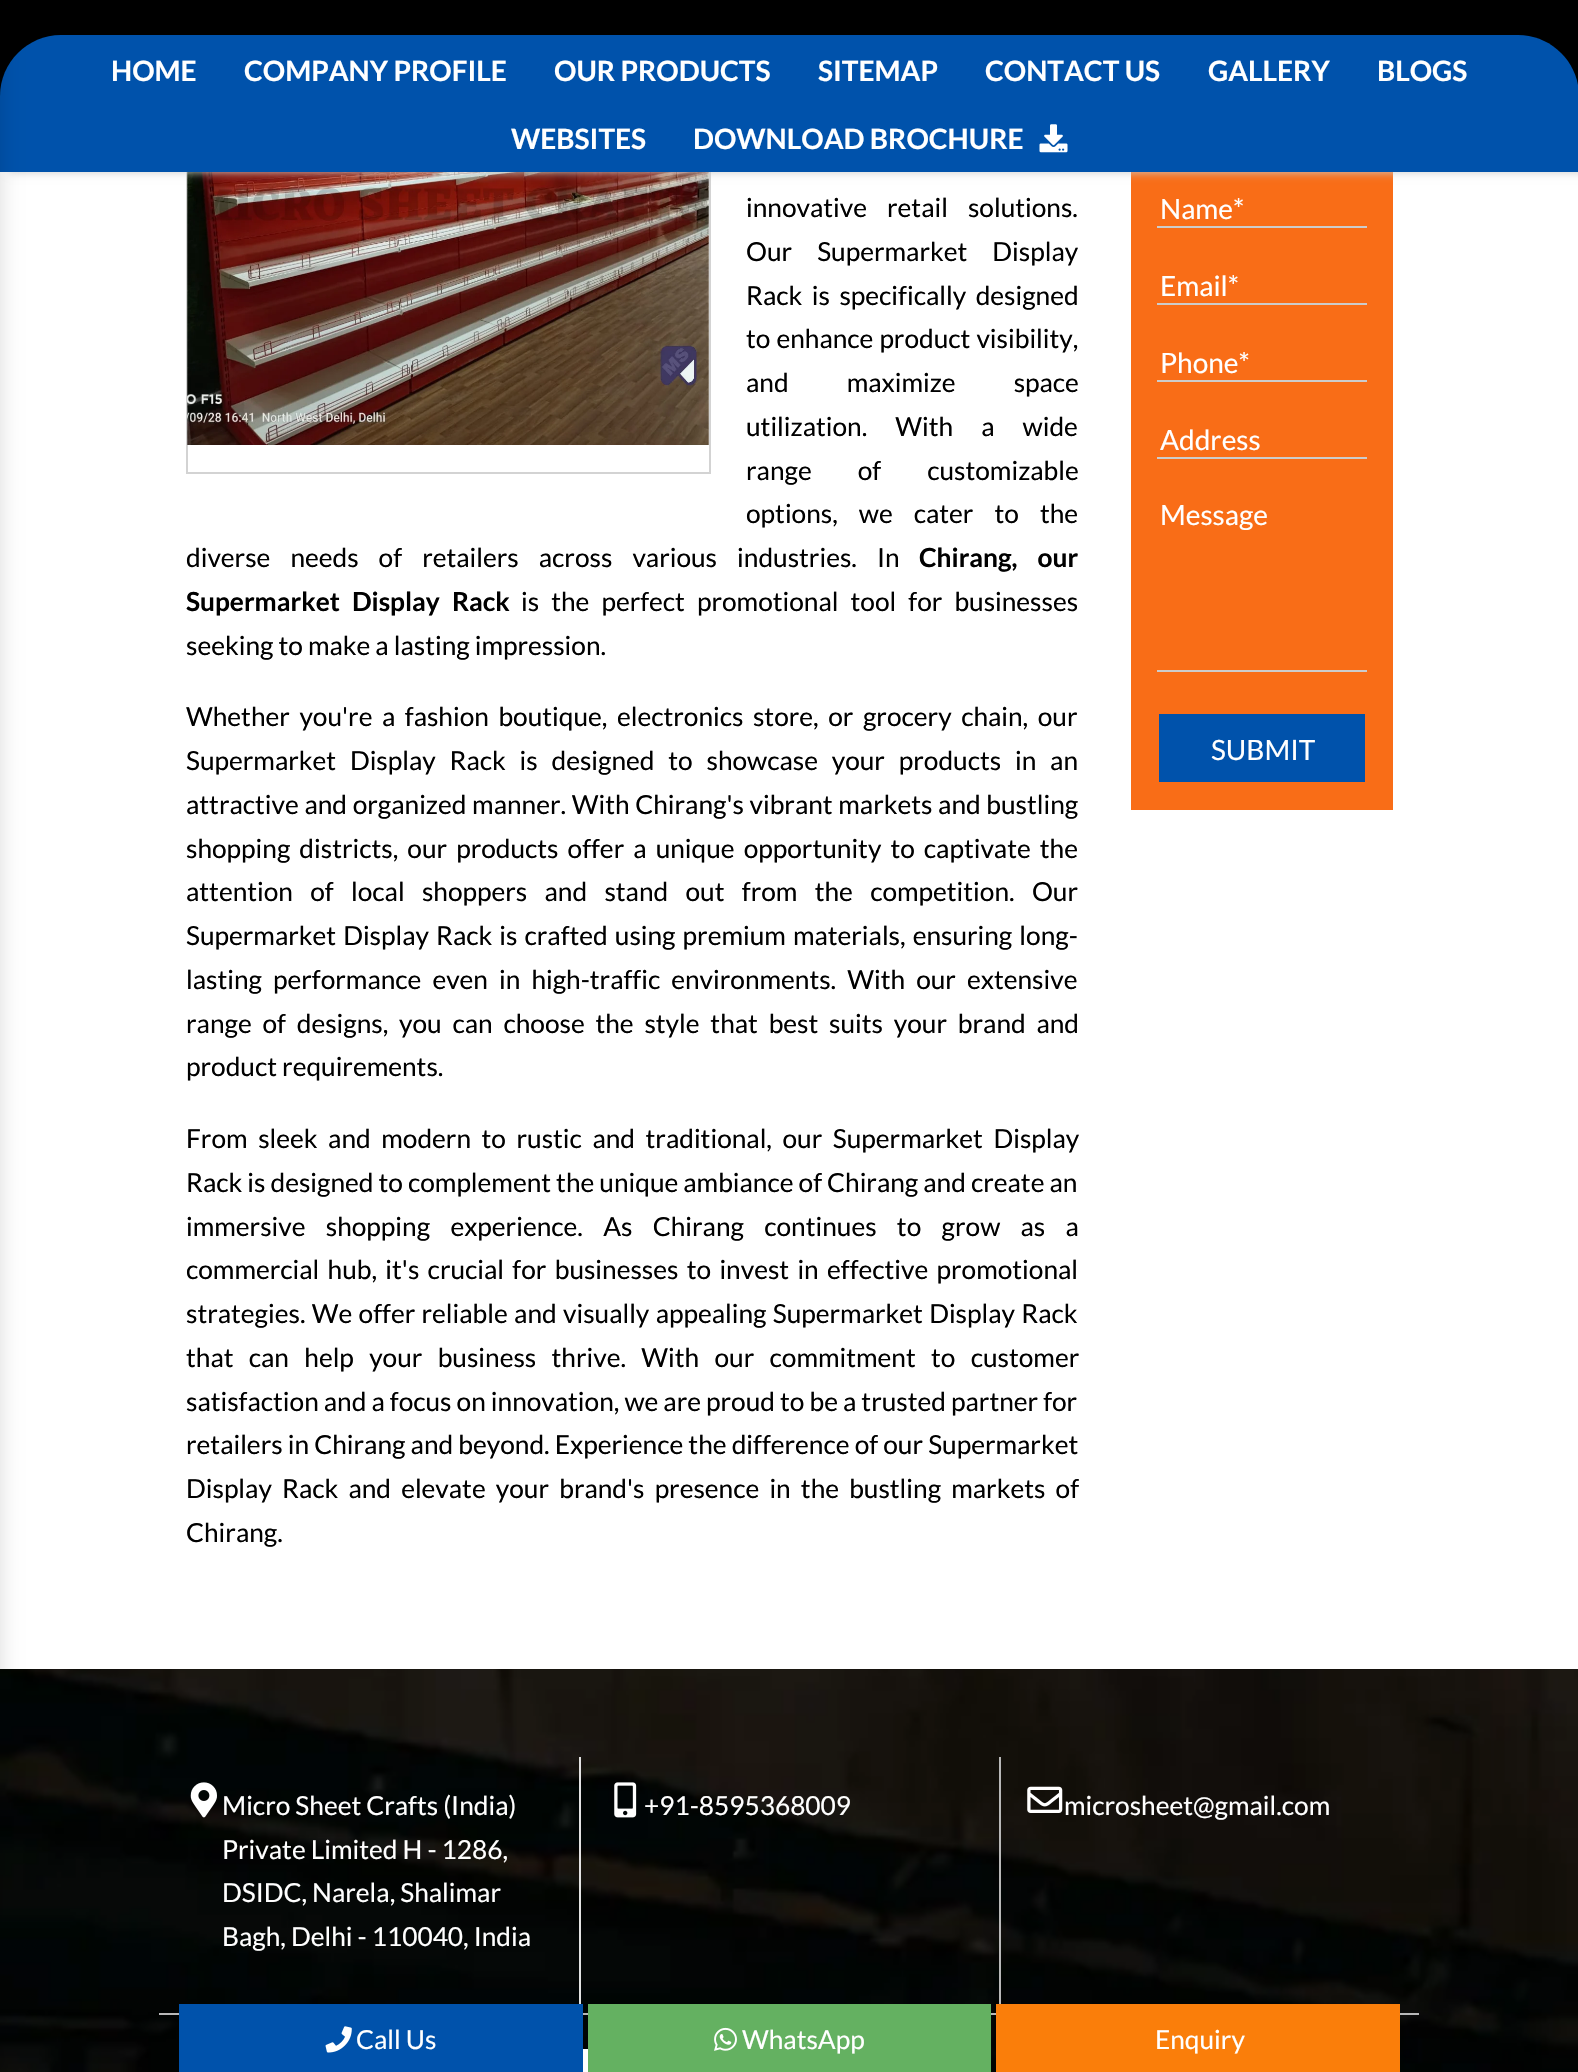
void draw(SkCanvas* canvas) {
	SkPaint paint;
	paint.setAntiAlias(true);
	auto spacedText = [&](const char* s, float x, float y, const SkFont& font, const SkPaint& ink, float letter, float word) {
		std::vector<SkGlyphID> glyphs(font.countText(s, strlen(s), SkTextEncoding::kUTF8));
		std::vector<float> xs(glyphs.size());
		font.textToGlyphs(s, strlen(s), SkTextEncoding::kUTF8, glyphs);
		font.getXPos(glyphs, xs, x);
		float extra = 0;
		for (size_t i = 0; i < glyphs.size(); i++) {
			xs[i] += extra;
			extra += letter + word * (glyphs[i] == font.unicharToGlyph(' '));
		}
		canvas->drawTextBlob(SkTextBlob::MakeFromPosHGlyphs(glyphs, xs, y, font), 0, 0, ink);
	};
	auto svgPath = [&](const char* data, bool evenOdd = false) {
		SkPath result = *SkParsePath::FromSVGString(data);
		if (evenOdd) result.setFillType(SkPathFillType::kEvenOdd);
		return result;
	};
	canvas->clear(0xffffffff);
	paint.setStroke(true);
	paint.setStrokeWidth(2);
	paint.setColor(0xffd3d3d3);
	canvas->drawRect(SkRect::MakeXYWH(187, -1, 523, 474), paint);
	canvas->drawImageRect(SkImages::DeferredFromEncodedData(SkData::MakeFromFileName("img2.png")), SkRect::MakeXYWH(187, 172, 522, 273), SkSamplingOptions());
	paint.setStroke(false);
	paint.setColor(0xfff96d17);
	canvas->drawRect(SkRect::MakeXYWH(1131, 172, 262, 638), paint);
	paint.setColor(0xffcccccc);
	paint.setMaskFilter(SkMaskFilter::MakeBlur(kNormal_SkBlurStyle, 4.5));
	canvas->drawRect(SkRect::MakeXYWH(9, 0, 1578, 172), paint);
	paint.setMaskFilter(nullptr);
	paint.setColor(0xff000000);
	canvas->drawRect(SkRect::MakeXYWH(0, 0, 1578, 96), paint);
	paint.setColor(0xff0052ab);
	canvas->drawPath(svgPath("M61 35H1518C1551.5 35 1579 62.5 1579 96V172H0V96C0 62.5 27.5 35 61 35Z"), paint);
	canvas->drawImageRect(SkImages::DeferredFromEncodedData(SkData::MakeFromFileName("img3.png")), SkRect::MakeXYWH(0, 1669, 1578, 403), SkSamplingOptions());
	paint.setColor(0x24000000);
	paint.setMaskFilter(SkMaskFilter::MakeBlur(kNormal_SkBlurStyle, 10.5));
	canvas->drawRect(SkRect::MakeXYWH(-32, 0, 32, 2072), paint);
	paint.setMaskFilter(nullptr);
	SkFont f1(fontMgr->matchFamilyStyle("Lato", SkFontStyle::Bold()), 28);
	f1.setSubpixel(true);
	paint.setColor(0xffffffff);
	canvas->drawString("HOME", 111, 81, f1, paint);
	canvas->drawString("COMPANY PROFILE", 244, 81, f1, paint);
	canvas->drawString("OUR PRODUCTS", 554, 81, f1, paint);
	canvas->drawString("SITEMAP", 818, 81, f1, paint);
	canvas->drawString("CONTACT US", 985, 81, f1, paint);
	canvas->drawString("GALLERY", 1208, 81, f1, paint);
	canvas->drawString("BLOGS", 1377, 81, f1, paint);
	canvas->drawString("WEBSITES", 511, 149, f1, paint);
	canvas->drawString("DOWNLOAD BROCHURE", 693, 149, f1, paint);
	canvas->drawImageRect(SkImages::DeferredFromEncodedData(SkData::MakeFromFileName("img1.png")), SkRect::MakeXYWH(1039, 124, 29, 29), SkSamplingOptions());
	SkFont f2(fontMgr->matchFamilyStyle("Lato", SkFontStyle::Normal()), 26.25);
	f2.setSubpixel(true);
	paint.setColor(0xff000000);
	spacedText("innovative retail solutions.", 746, 217, f2, paint, 0, 15);
	spacedText("Our Supermarket Display", 746, 261, f2, paint, 0, 20);
	spacedText("Rack is specifically designed", 746, 305, f2, paint, 0, 4.5);
	spacedText("to enhance product visibility,", 746, 348, f2, paint, 0, 1);
	spacedText("and maximize space", 746, 392, f2, paint, 0, 53);
	spacedText("utilization. With a wide", 746, 436, f2, paint, 0, 23);
	spacedText("range of customizable", 746, 480, f2, paint, 0, 41);
	spacedText("options, we cater to the", 746, 523, f2, paint, 0, 16);
	spacedText("diverse needs of retailers across various industries. In", 186, 567, f2, paint, 0, 15);
	SkFont f3(fontMgr->matchFamilyStyle("Lato", SkFontStyle::Bold()), 26.25);
	f3.setSubpixel(true);
	spacedText("Chirang, our", 919, 567, f3, paint, 0, 15);
	spacedText("Supermarket Display Rack", 186, 611, f3, paint, 0, 7);
	spacedText("is the perfect promotional tool for businesses", 521, 611, f2, paint, 0, 7);
	canvas->drawString("seeking to make a lasting impression.", 186, 655, f2, paint);
	spacedText("Whether you're a fashion boutique, electronics store, or grocery chain, our", 186, 726, f2, paint, 0, 4.5);
	spacedText("Supermarket Display Rack is designed to showcase your products in an", 186, 770, f2, paint, 0, 8.75);
	spacedText("attractive and organized manner. With Chirang's vibrant markets and bustling", 186, 814, f2, paint, 0, 0.6);
	spacedText("shopping districts, our products offer a unique opportunity to captivate the", 186, 858, f2, paint, 0, 4);
	spacedText("attention of local shoppers and stand out from the competition. Our", 186, 901, f2, paint, 0, 12.25);
	spacedText("Supermarket Display Rack is crafted using premium materials, ensuring long-", 186, 945, f2, paint, 0, 2);
	spacedText("lasting performance even in high-traffic environments. With our extensive", 186, 989, f2, paint, 0, 6);
	spacedText("range of designs, you can choose the style that best suits your brand and", 186, 1033, f2, paint, 0, 5.75);
	canvas->drawString("product requirements.", 186, 1076, f2, paint);
	spacedText("From sleek and modern to rustic and traditional, our Supermarket Display", 186, 1148, f2, paint, 0, 5.5);
	canvas->drawString("Rack is designed to complement the unique ambiance of Chirang and create an", 186, 1192, f2, paint);
	spacedText("immersive shopping experience. As Chirang continues to grow as a", 186, 1236, f2, paint, 0, 15.25);
	spacedText("commercial hub, it's crucial for businesses to invest in effective promotional", 186, 1279, f2, paint, 0, 3.25);
	spacedText("strategies. We offer reliable and visually appealing Supermarket Display Rack", 186, 1323, f2, paint, 0, 1.25);
	spacedText("that can help your business thrive. With our commitment to customer", 186, 1367, f2, paint, 0, 10.25);
	canvas->drawString("satisfaction and a focus on innovation, we are proud to be a trusted partner for", 186, 1411, f2, paint);
	spacedText("retailers in Chirang and beyond. Experience the difference of our Supermarket", 186, 1454, f2, paint, 0, 0.1);
	spacedText("Display Rack and elevate your brand's presence in the bustling markets of", 186, 1498, f2, paint, 0, 5.1);
	canvas->drawString("Chirang.", 186, 1542, f2, paint);
	paint.setColor(0xffcccccc);
	canvas->drawRect(SkRect::MakeXYWH(1157, 226, 210, 2), paint);
	SkFont f4(fontMgr->matchFamilyStyle("Lato", SkFontStyle::Normal()), 28);
	f4.setSubpixel(true);
	paint.setColor(0xffffffff);
	canvas->drawString("Name*", 1160, 219, f4, paint);
	paint.setColor(0xffcccccc);
	canvas->drawRect(SkRect::MakeXYWH(1157, 303, 210, 2), paint);
	paint.setColor(0xffffffff);
	canvas->drawString("Email*", 1160, 296, f4, paint);
	paint.setColor(0xffcccccc);
	canvas->drawRect(SkRect::MakeXYWH(1157, 380, 210, 2), paint);
	paint.setColor(0xffffffff);
	canvas->drawString("Phone*", 1160, 373, f4, paint);
	paint.setColor(0xffcccccc);
	canvas->drawRect(SkRect::MakeXYWH(1157, 457, 210, 2), paint);
	paint.setColor(0xffffffff);
	canvas->drawString("Address", 1160, 450, f4, paint);
	paint.setColor(0xffcccccc);
	canvas->drawRect(SkRect::MakeXYWH(1157, 670, 210, 2), paint);
	paint.setColor(0xffffffff);
	canvas->drawString("Message", 1160, 525, f4, paint);
	paint.setColor(0xff0052ab);
	canvas->drawRect(SkRect::MakeXYWH(1159, 714, 206, 68), paint);
	paint.setColor(0xffffffff);
	canvas->drawString("SUBMIT", 1211, 760, f4, paint);
	paint.setColor(0xffb8b8b8);
	canvas->drawRect(SkRect::MakeXYWH(159, 2013, 1260, 2), paint);
	canvas->drawImageRect(SkImages::DeferredFromEncodedData(SkData::MakeFromFileName("img4.png")), SkRect::MakeXYWH(190, 1782, 27, 36), SkSamplingOptions());
	paint.setColor(0xffffffff);
	canvas->drawString("Micro Sheet Crafts (India)", 222, 1815, f2, paint);
	canvas->drawString("Private Limited H - 1286,", 222, 1859, f2, paint);
	canvas->drawString("DSIDC, Narela, Shalimar", 222, 1902, f2, paint);
	canvas->drawString("Bagh, Delhi - 110040, India", 222, 1946, f2, paint);
	paint.setColor(0xffe2e2e2);
	canvas->drawRect(SkRect::MakeXYWH(579, 1757, 2, 247), paint);
	canvas->drawImageRect(SkImages::DeferredFromEncodedData(SkData::MakeFromFileName("img5.png")), SkRect::MakeXYWH(614, 1782, 23, 36), SkSamplingOptions());
	paint.setColor(0xffffffff);
	canvas->drawString("+91-8595368009", 644, 1815, f2, paint);
	paint.setColor(0xffb8b8b8);
	canvas->drawRect(SkRect::MakeXYWH(999, 1757, 2, 247), paint);
	canvas->drawImageRect(SkImages::DeferredFromEncodedData(SkData::MakeFromFileName("img6.png")), SkRect::MakeXYWH(1027, 1786, 36, 27), SkSamplingOptions());
	paint.setColor(0xffffffff);
	canvas->drawString("microsheet@gmail.com", 1064, 1815, f2, paint);
	canvas->drawImageRect(SkImages::DeferredFromEncodedData(SkData::MakeFromFileName("img7.png")), SkRect::MakeXYWH(583, 2049, 5, 23), SkSamplingOptions());
	paint.setColor(0xff0052ab);
	canvas->drawRect(SkRect::MakeXYWH(179, 2004, 404, 68), paint);
	canvas->drawImageRect(SkImages::DeferredFromEncodedData(SkData::MakeFromFileName("img8.png")), SkRect::MakeXYWH(325, 2026, 27, 27), SkSamplingOptions());
	paint.setColor(0xffffffff);
	canvas->drawString("Call Us", 356, 2049, f2, paint);
	paint.setColor(0xff64b161);
	canvas->drawRect(SkRect::MakeXYWH(588, 2004, 403, 68), paint);
	canvas->drawImageRect(SkImages::DeferredFromEncodedData(SkData::MakeFromFileName("img9.png")), SkRect::MakeXYWH(714, 2027, 23, 24), SkSamplingOptions());
	paint.setColor(0xffffffff);
	canvas->drawString("WhatsApp", 742, 2049, f2, paint);
	paint.setColor(0xfffa7e0a);
	canvas->drawRect(SkRect::MakeXYWH(996, 2004, 404, 68), paint);
	paint.setColor(0xffffffff);
	canvas->drawString("Enquiry", 1155, 2049, f2, paint);
}
